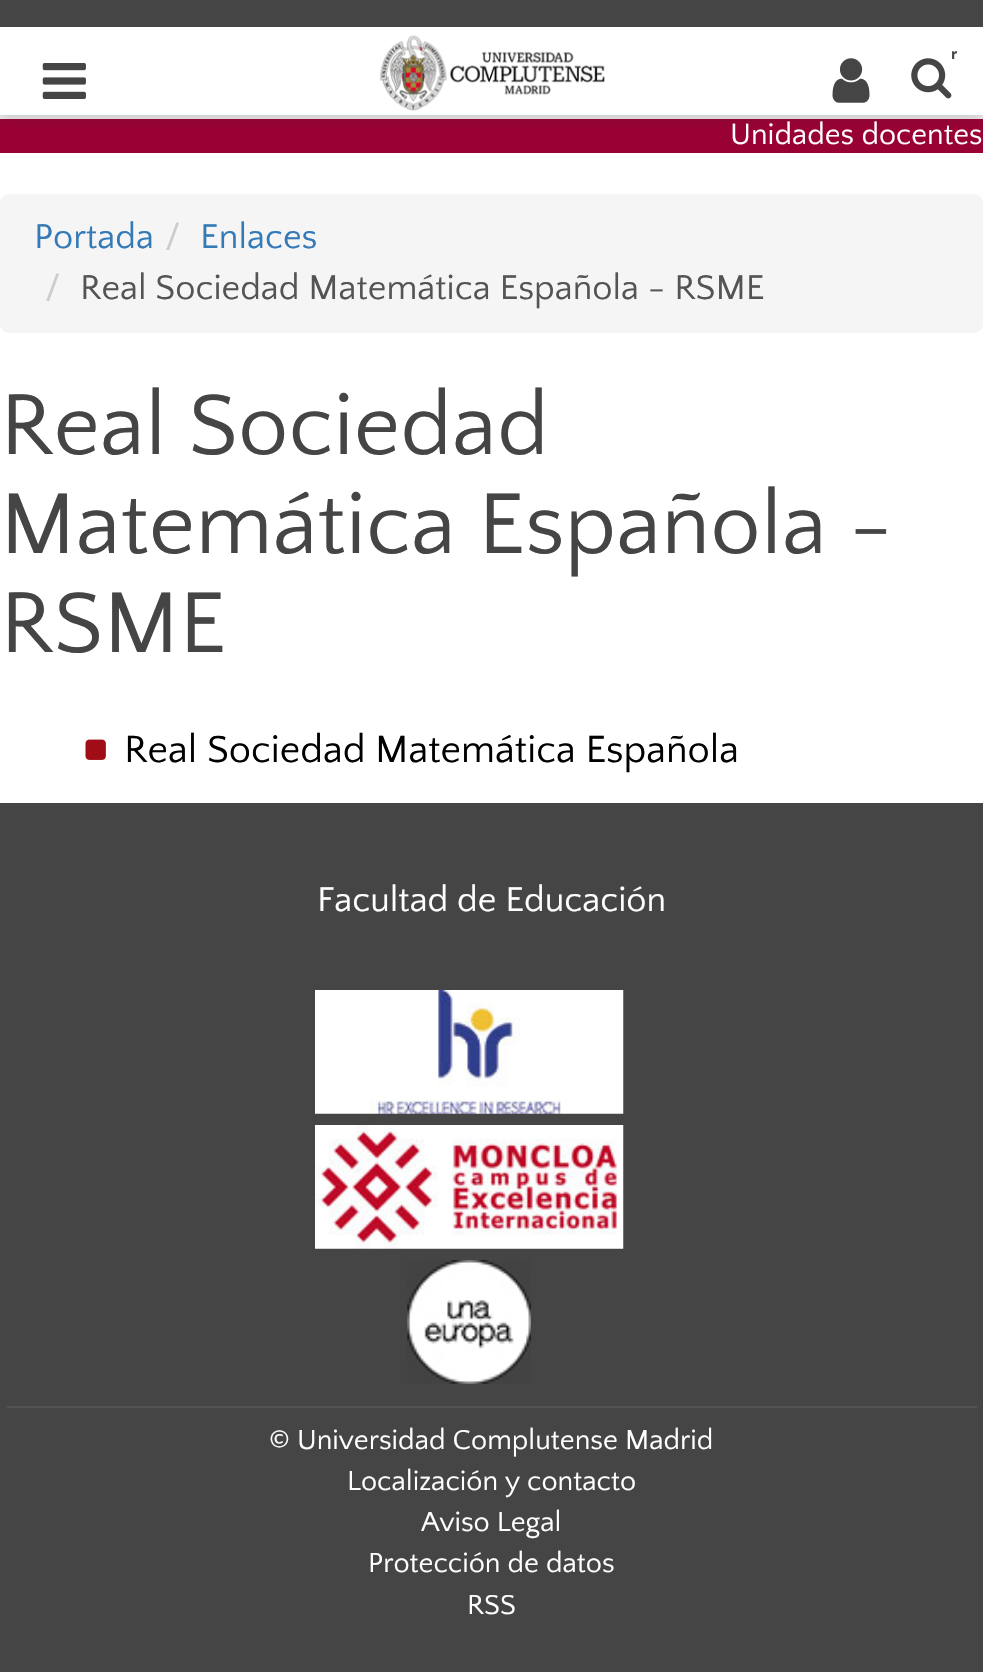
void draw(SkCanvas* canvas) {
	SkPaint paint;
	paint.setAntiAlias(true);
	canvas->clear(0xffffffff);
	paint.setColor(0xfff1eded);
	canvas->drawRect(SkRect::MakeXYWH(0, 115, 983, 4), paint);
	paint.setColor(0xff990033);
	canvas->drawRect(SkRect::MakeXYWH(0, 119, 983, 34), paint);
	paint.setColor(0x33323232);
	paint.setMaskFilter(SkMaskFilter::MakeBlur(kNormal_SkBlurStyle, 5.5));
	canvas->drawRect(SkRect::MakeXYWH(0, 32, 983, 87), paint);
	paint.setMaskFilter(nullptr);
	paint.setColor(0xffffffff);
	canvas->drawRect(SkRect::MakeXYWH(0, 27, 983, 88), paint);
	canvas->drawImageRect(SkImages::DeferredFromEncodedData(SkData::MakeFromFileName("img1.png")), SkRect::MakeXYWH(42, 63, 44, 36), SkSamplingOptions());
	canvas->drawImageRect(SkImages::DeferredFromEncodedData(SkData::MakeFromFileName("img2.png")), SkRect::MakeXYWH(379, 35, 226, 76), SkSamplingOptions());
	paint.setColor(0xff454545);
	canvas->drawRect(SkRect::MakeXYWH(0, 0, 983, 27), paint);
	SkFont f1(fontMgr->matchFamilyStyle("Noto Sans", SkFontStyle::Bold()), 14);
	f1.setSubpixel(true);
	canvas->drawString("r", 951, 59, f1, paint);
	paint.setColor(0xffffffff);
	canvas->drawRoundRect(SkRect::MakeXYWH(911, 45, 41, 61), 5, 5, paint);
	canvas->drawImageRect(SkImages::DeferredFromEncodedData(SkData::MakeFromFileName("img3.png")), SkRect::MakeXYWH(911, 58, 41, 41), SkSamplingOptions());
	canvas->drawImageRect(SkImages::DeferredFromEncodedData(SkData::MakeFromFileName("img4.png")), SkRect::MakeXYWH(832, 58, 38, 45), SkSamplingOptions());
	SkFont f2(fontMgr->matchFamilyStyle("Quattrocento Sans", SkFontStyle::Normal()), 30.5);
	f2.setSubpixel(true);
	canvas->drawString("Unidades docentes", 730, 144, f2, paint);
	paint.setColor(0xfff5f5f5);
	canvas->drawRoundRect(SkRect::MakeXYWH(0, 194, 983, 139), 9, 9, paint);
	SkFont f3(fontMgr->matchFamilyStyle("Quattrocento Sans", SkFontStyle::Normal()), 36);
	f3.setSubpixel(true);
	paint.setColor(0xff337ab7);
	canvas->drawString("Portada", 34, 248, f3, paint);
	paint.setColor(0xffcccccc);
	canvas->drawString("/", 165, 248, f3, paint);
	paint.setColor(0xff337ab7);
	canvas->drawString("Enlaces", 200, 248, f3, paint);
	paint.setColor(0xffcccccc);
	canvas->drawString("/", 45, 299, f3, paint);
	paint.setColor(0xff555354);
	canvas->drawString("Real Sociedad Matemática Española - RSME", 80, 299, f3, paint);
	SkFont f4(fontMgr->matchFamilyStyle("Quattrocento Sans", SkFontStyle::Normal()), 90);
	f4.setSubpixel(true);
	paint.setColor(0xff454545);
	canvas->drawString("Real Sociedad", 0, 454, f4, paint);
	canvas->drawString("Matemática Española -", 0, 553, f4, paint);
	canvas->drawString("RSME", 0, 652, f4, paint);
	canvas->drawImageRect(SkImages::DeferredFromEncodedData(SkData::MakeFromFileName("img5.png")), SkRect::MakeXYWH(85, 739, 21, 21), SkSamplingOptions());
	SkFont f5(fontMgr->matchFamilyStyle("Quattrocento Sans", SkFontStyle::Normal()), 39.6);
	f5.setSubpixel(true);
	paint.setColor(0xff000000);
	canvas->drawString("Real Sociedad Matemática Española", 124, 762, f5, paint);
	paint.setColor(0xff454545);
	canvas->drawRect(SkRect::MakeXYWH(0, 803, 983, 869), paint);
	paint.setColor(0xffffffff);
	canvas->drawString("Facultad de Educación", 317, 911, f3, paint);
	canvas->drawImageRect(SkImages::DeferredFromEncodedData(SkData::MakeFromFileName("img6.png")), SkRect::MakeXYWH(315, 990, 309, 124), SkSamplingOptions());
	canvas->drawImageRect(SkImages::DeferredFromEncodedData(SkData::MakeFromFileName("img7.png")), SkRect::MakeXYWH(315, 1125, 309, 124), SkSamplingOptions());
	canvas->drawImageRect(SkImages::DeferredFromEncodedData(SkData::MakeFromFileName("img8.png")), SkRect::MakeXYWH(407, 1260, 124, 124), SkSamplingOptions());
	paint.setColor(0xff535353);
	canvas->drawRect(SkRect::MakeXYWH(7, 1406, 970, 2), paint);
	SkFont f6(fontMgr->matchFamilyStyle("Quattrocento Sans", SkFontStyle::Normal()), 28.75);
	f6.setSubpixel(true);
	paint.setColor(0xffffffff);
	canvas->drawString("© Universidad Complutense Madrid", 269, 1449, f6, paint);
	canvas->drawString("Localización y contacto", 347, 1490, f6, paint);
	canvas->drawString("Aviso Legal", 421, 1531, f6, paint);
	canvas->drawString("Protección de datos", 368, 1572, f6, paint);
	canvas->drawString("RSS", 467, 1614, f6, paint);
}
